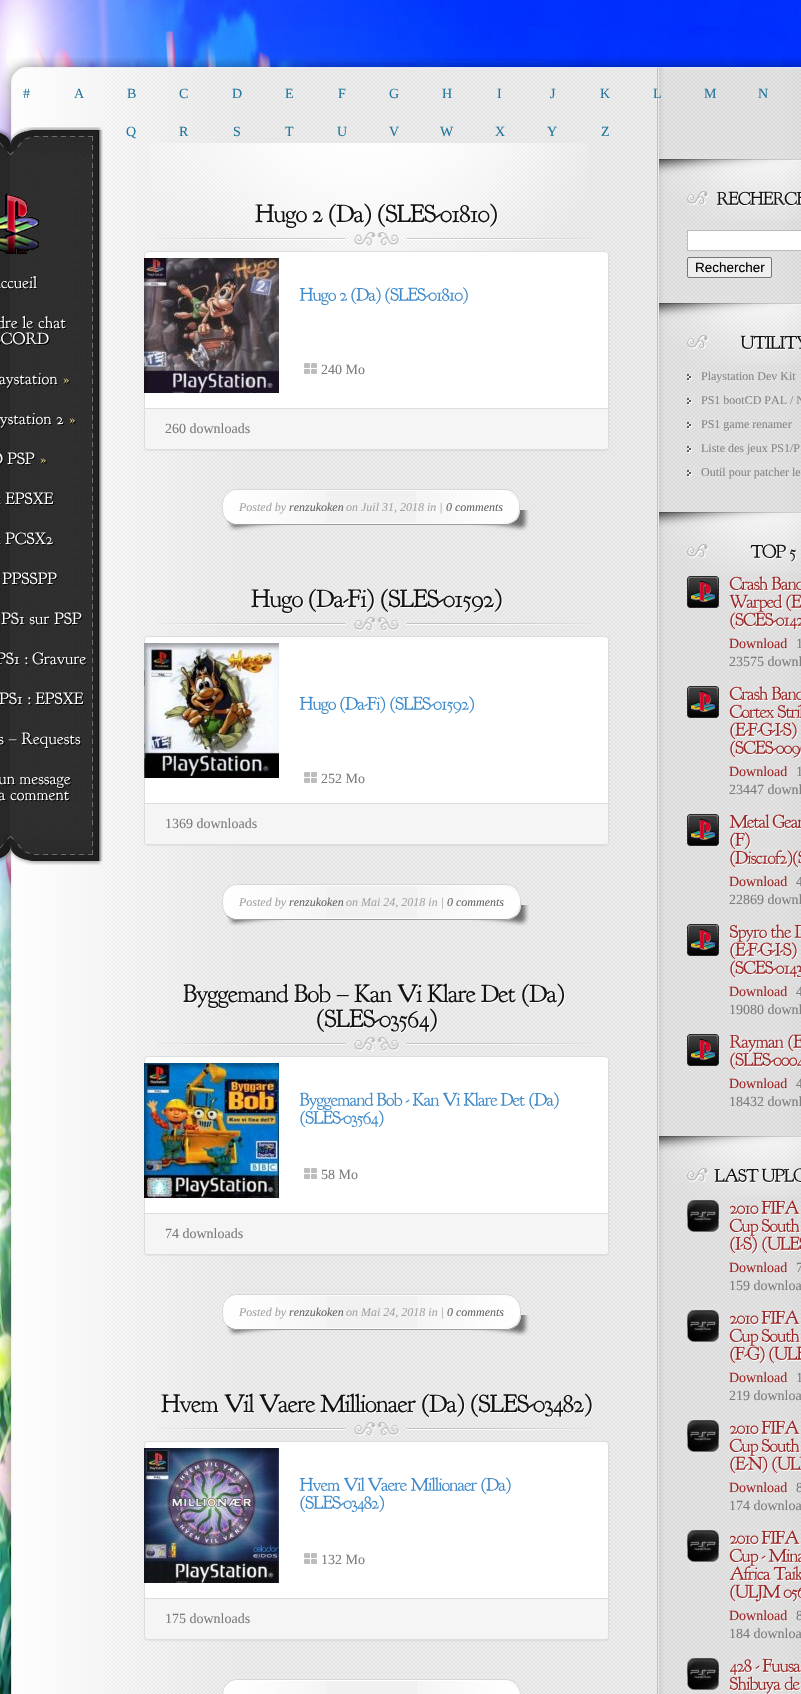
void draw(SkCanvas* canvas) {
	SkPaint paint;
	paint.setAntiAlias(true);
	auto svgPath = [&](const char* data, bool evenOdd = false) {
		SkPath result = *SkParsePath::FromSVGString(data);
		if (evenOdd) result.setFillType(SkPathFillType::kEvenOdd);
		return result;
	};
	canvas->clear(0xffffffff);
	canvas->drawImageRect(SkImages::DeferredFromEncodedData(SkData::MakeFromFileName("img1.png")), SkRect::MakeXYWH(0, 0, 801, 1694), SkSamplingOptions());
	canvas->drawImageRect(SkImages::DeferredFromEncodedData(SkData::MakeFromFileName("img2.png")), SkRect::MakeXYWH(1, 57, 800, 26), SkSamplingOptions());
	canvas->drawImageRect(SkImages::DeferredFromEncodedData(SkData::MakeFromFileName("img3.png")), SkRect::MakeXYWH(1, 83, 800, 1611), SkSamplingOptions());
	SkFont f1(fontMgr->matchFamilyStyle("Liberation Serif", SkFontStyle::Normal()), 14);
	f1.setSubpixel(true);
	paint.setColor(0xff21759b);
	canvas->drawString("#", 23, 98, f1, paint);
	canvas->drawString("A", 74, 98, f1, paint);
	canvas->drawString("B", 127, 98, f1, paint);
	canvas->drawString("C", 179, 98, f1, paint);
	canvas->drawString("D", 232, 98, f1, paint);
	canvas->drawString("E", 285, 98, f1, paint);
	canvas->drawString("F", 338, 98, f1, paint);
	canvas->drawString("G", 389, 98, f1, paint);
	canvas->drawString("H", 442, 98, f1, paint);
	canvas->drawString("I", 497, 98, f1, paint);
	canvas->drawString("J", 550, 98, f1, paint);
	canvas->drawString("K", 600, 98, f1, paint);
	canvas->drawString("L", 653, 98, f1, paint);
	canvas->drawString("M", 704, 98, f1, paint);
	canvas->drawString("N", 758, 98, f1, paint);
	canvas->drawString("Q", 126, 136, f1, paint);
	canvas->drawString("R", 179, 136, f1, paint);
	canvas->drawString("S", 233, 136, f1, paint);
	canvas->drawString("T", 285, 136, f1, paint);
	canvas->drawString("U", 337, 136, f1, paint);
	canvas->drawString("V", 389, 136, f1, paint);
	canvas->drawString("W", 440, 136, f1, paint);
	canvas->drawString("X", 495, 136, f1, paint);
	canvas->drawString("Y", 547, 136, f1, paint);
	canvas->drawString("Z", 601, 136, f1, paint);
	canvas->drawImageRect(SkImages::DeferredFromEncodedData(SkData::MakeFromFileName("img4.png")), SkRect::MakeXYWH(150, 143, 438, 108), SkSamplingOptions());
	canvas->drawImageRect(SkImages::DeferredFromEncodedData(SkData::MakeFromFileName("img5.png")), SkRect::MakeXYWH(158, 232, 436, 14), SkSamplingOptions());
	canvas->drawImageRect(SkImages::DeferredFromEncodedData(SkData::MakeFromFileName("img6.png")), SkRect::MakeXYWH(255, 204, 53, 25), SkSamplingOptions());
	canvas->drawImageRect(SkImages::DeferredFromEncodedData(SkData::MakeFromFileName("img7.png")), SkRect::MakeXYWH(312, 211, 11, 12), SkSamplingOptions());
	canvas->drawImageRect(SkImages::DeferredFromEncodedData(SkData::MakeFromFileName("img8.png")), SkRect::MakeXYWH(329, 203, 43, 25), SkSamplingOptions());
	canvas->drawImageRect(SkImages::DeferredFromEncodedData(SkData::MakeFromFileName("img9.png")), SkRect::MakeXYWH(378, 203, 120, 25), SkSamplingOptions());
	paint.setColor(0x0d000000);
	paint.setMaskFilter(SkMaskFilter::MakeBlur(kNormal_SkBlurStyle, 0.5));
	canvas->drawRoundRect(SkRect::MakeXYWH(144, 252, 465, 199), 4, 4, paint);
	paint.setMaskFilter(nullptr);
	paint.setColor(0xffffffff);
	canvas->drawRoundRect(SkRect::MakeXYWH(144.5, 251.5, 464, 198), 3.5, 3.5, paint);
	paint.setStroke(true);
	paint.setStrokeWidth(1);
	paint.setColor(0xffdddddd);
	canvas->drawRoundRect(SkRect::MakeXYWH(144.5, 251.5, 464, 198), 3.5, 3.5, paint);
	canvas->drawImageRect(SkImages::DeferredFromEncodedData(SkData::MakeFromFileName("img10.png")), SkRect::MakeXYWH(144, 258, 135, 135), SkSamplingOptions());
	canvas->drawImageRect(SkImages::DeferredFromEncodedData(SkData::MakeFromFileName("img11.png")), SkRect::MakeXYWH(144, 258, 135, 135), SkSamplingOptions());
	canvas->drawImageRect(SkImages::DeferredFromEncodedData(SkData::MakeFromFileName("img12.png")), SkRect::MakeXYWH(299, 287, 37, 18), SkSamplingOptions());
	canvas->drawImageRect(SkImages::DeferredFromEncodedData(SkData::MakeFromFileName("img13.png")), SkRect::MakeXYWH(340, 292, 8, 9), SkSamplingOptions());
	canvas->drawImageRect(SkImages::DeferredFromEncodedData(SkData::MakeFromFileName("img14.png")), SkRect::MakeXYWH(351, 287, 30, 18), SkSamplingOptions());
	canvas->drawImageRect(SkImages::DeferredFromEncodedData(SkData::MakeFromFileName("img15.png")), SkRect::MakeXYWH(385, 287, 83, 18), SkSamplingOptions());
	canvas->drawImageRect(SkImages::DeferredFromEncodedData(SkData::MakeFromFileName("img16.png")), SkRect::MakeXYWH(304, 363, 13, 11), SkSamplingOptions());
	paint.setStroke(false);
	paint.setColor(0xff7c7c7c);
	canvas->drawString("240 Mo", 321, 374, f1, paint);
	paint.setColor(0xfff5f5f5);
	canvas->drawPath(svgPath("M145 408H608V446C608 447.5 606.5 449 605 449H148C146.5 449 145 447.5 145 446Z"), paint);
	paint.setColor(0xffdddddd);
	canvas->drawRect(SkRect::MakeXYWH(145, 408, 463, 1), paint);
	paint.setColor(0xff7c7c7c);
	canvas->drawString("260 downloads", 165, 433, f1, paint);
	canvas->drawImageRect(SkImages::DeferredFromEncodedData(SkData::MakeFromFileName("img19.png")), SkRect::MakeXYWH(227, 521, 57, 10), SkSamplingOptions());
	canvas->drawImageRect(SkImages::DeferredFromEncodedData(SkData::MakeFromFileName("img20.png")), SkRect::MakeXYWH(472, 510, 57, 21), SkSamplingOptions());
	paint.setColor(0xfff1f1f1);
	canvas->drawRoundRect(SkRect::MakeXYWH(222, 489, 298, 36), 15, 15, paint);
	paint.setStroke(true);
	paint.setColor(0xff9c9c9c);
	canvas->drawPath(svgPath("M515.5 520.5C512.5 523 509 524.5 505 524.5H237C233 524.5 229.5 523 226.5 520.5"), paint);
	paint.setColor(0xffd7d7d7);
	canvas->drawPath(svgPath("M226.5 520.5C222 515.5 221 504.5 223.5 498.5C226 493 231 489.5 237 489.5H505C515.5 489.5 519.5 498 519.5 507C519.5 512 519 516.5 515.5 520.5"), paint);
	canvas->drawImageRect(SkImages::DeferredFromEncodedData(SkData::MakeFromFileName("img17.png")), SkRect::MakeXYWH(224, 490, 102, 34), SkSamplingOptions());
	paint.setColor(0xffffffff);
	canvas->drawRoundRect(SkRect::MakeXYWH(223.5, 490.5, 295, 33), 14.5, 14.5, paint);
	canvas->drawImageRect(SkImages::DeferredFromEncodedData(SkData::MakeFromFileName("img18.png")), SkRect::MakeXYWH(416, 491, 102, 32), SkSamplingOptions());
	SkFont f2(fontMgr->matchFamilyStyle("Liberation Serif", SkFontStyle::Italic()), 12);
	f2.setSubpixel(true);
	paint.setStroke(false);
	paint.setColor(0xffa4a4a4);
	canvas->drawString("Posted by", 239, 511, f2, paint);
	paint.setColor(0xff666666);
	canvas->drawString("renzukoken", 289, 511, f2, paint);
	paint.setColor(0xffa4a4a4);
	canvas->drawString("on Juil 31, 2018 in |", 346, 511, f2, paint);
	paint.setColor(0xff666666);
	canvas->drawString("0 comments", 446, 511, f2, paint);
	canvas->drawImageRect(SkImages::DeferredFromEncodedData(SkData::MakeFromFileName("img21.png")), SkRect::MakeXYWH(158, 617, 436, 14), SkSamplingOptions());
	canvas->drawImageRect(SkImages::DeferredFromEncodedData(SkData::MakeFromFileName("img22.png")), SkRect::MakeXYWH(251, 589, 53, 25), SkSamplingOptions());
	canvas->drawImageRect(SkImages::DeferredFromEncodedData(SkData::MakeFromFileName("img23.png")), SkRect::MakeXYWH(309, 588, 66, 25), SkSamplingOptions());
	canvas->drawImageRect(SkImages::DeferredFromEncodedData(SkData::MakeFromFileName("img24.png")), SkRect::MakeXYWH(381, 588, 122, 26), SkSamplingOptions());
	paint.setColor(0x0d000000);
	paint.setMaskFilter(SkMaskFilter::MakeBlur(kNormal_SkBlurStyle, 0.5));
	canvas->drawRoundRect(SkRect::MakeXYWH(144, 637, 465, 209), 4, 4, paint);
	paint.setMaskFilter(nullptr);
	paint.setColor(0xffffffff);
	canvas->drawRoundRect(SkRect::MakeXYWH(144.5, 636.5, 464, 208), 3.5, 3.5, paint);
	paint.setStroke(true);
	paint.setColor(0xffdddddd);
	canvas->drawRoundRect(SkRect::MakeXYWH(144.5, 636.5, 464, 208), 3.5, 3.5, paint);
	canvas->drawImageRect(SkImages::DeferredFromEncodedData(SkData::MakeFromFileName("img25.png")), SkRect::MakeXYWH(144, 643, 135, 135), SkSamplingOptions());
	canvas->drawImageRect(SkImages::DeferredFromEncodedData(SkData::MakeFromFileName("img26.png")), SkRect::MakeXYWH(144, 643, 135, 135), SkSamplingOptions());
	canvas->drawImageRect(SkImages::DeferredFromEncodedData(SkData::MakeFromFileName("img12.png")), SkRect::MakeXYWH(299, 696, 37, 18), SkSamplingOptions());
	canvas->drawImageRect(SkImages::DeferredFromEncodedData(SkData::MakeFromFileName("img27.png")), SkRect::MakeXYWH(340, 696, 46, 18), SkSamplingOptions());
	canvas->drawImageRect(SkImages::DeferredFromEncodedData(SkData::MakeFromFileName("img28.png")), SkRect::MakeXYWH(390, 696, 85, 18), SkSamplingOptions());
	canvas->drawImageRect(SkImages::DeferredFromEncodedData(SkData::MakeFromFileName("img16.png")), SkRect::MakeXYWH(304, 772, 13, 11), SkSamplingOptions());
	paint.setStroke(false);
	paint.setColor(0xff7c7c7c);
	canvas->drawString("252 Mo", 321, 783, f1, paint);
	paint.setColor(0xfff5f5f5);
	canvas->drawPath(svgPath("M145 803H608V841C608 842.5 606.5 844 605 844H148C146.5 844 145 842.5 145 841Z"), paint);
	paint.setColor(0xffdddddd);
	canvas->drawRect(SkRect::MakeXYWH(145, 803, 463, 1), paint);
	paint.setColor(0xff7c7c7c);
	canvas->drawString("1369 downloads", 165, 828, f1, paint);
	canvas->drawImageRect(SkImages::DeferredFromEncodedData(SkData::MakeFromFileName("img31.png")), SkRect::MakeXYWH(227, 916, 57, 10), SkSamplingOptions());
	canvas->drawImageRect(SkImages::DeferredFromEncodedData(SkData::MakeFromFileName("img32.png")), SkRect::MakeXYWH(472, 905, 57, 21), SkSamplingOptions());
	paint.setColor(0xfff1f1f1);
	canvas->drawRoundRect(SkRect::MakeXYWH(222, 884, 299, 36), 15, 15, paint);
	paint.setStroke(true);
	paint.setColor(0xff9c9c9c);
	canvas->drawPath(svgPath("M516.5 915.5C513.5 918 510 919.5 506 919.5H237C233 919.5 229.5 918 226.5 915.5"), paint);
	paint.setColor(0xffd7d7d7);
	canvas->drawPath(svgPath("M226.5 915.5C223 911.5 222.5 907 222.5 902C222.5 895 224.5 888.5 231.5 885.5L237 884.5H506C516.5 884.5 520.5 893 520.5 902C520.5 907 520 911.5 516.5 915.5"), paint);
	canvas->drawImageRect(SkImages::DeferredFromEncodedData(SkData::MakeFromFileName("img29.png")), SkRect::MakeXYWH(224, 885, 102, 34), SkSamplingOptions());
	paint.setColor(0xffffffff);
	canvas->drawRoundRect(SkRect::MakeXYWH(223.5, 885.5, 296, 33), 14.5, 14.5, paint);
	canvas->drawImageRect(SkImages::DeferredFromEncodedData(SkData::MakeFromFileName("img30.png")), SkRect::MakeXYWH(417, 886, 102, 32), SkSamplingOptions());
	paint.setStroke(false);
	paint.setColor(0xffa4a4a4);
	canvas->drawString("Posted by", 239, 906, f2, paint);
	paint.setColor(0xff666666);
	canvas->drawString("renzukoken", 289, 906, f2, paint);
	paint.setColor(0xffa4a4a4);
	canvas->drawString("on Mai 24, 2018 in |", 346, 906, f2, paint);
	paint.setColor(0xff666666);
	canvas->drawString("0 comments", 447, 906, f2, paint);
	canvas->drawImageRect(SkImages::DeferredFromEncodedData(SkData::MakeFromFileName("img21.png")), SkRect::MakeXYWH(158, 1037, 436, 14), SkSamplingOptions());
	canvas->drawImageRect(SkImages::DeferredFromEncodedData(SkData::MakeFromFileName("img33.png")), SkRect::MakeXYWH(183, 983, 107, 26), SkSamplingOptions());
	canvas->drawImageRect(SkImages::DeferredFromEncodedData(SkData::MakeFromFileName("img34.png")), SkRect::MakeXYWH(294, 983, 38, 21), SkSamplingOptions());
	canvas->drawImageRect(SkImages::DeferredFromEncodedData(SkData::MakeFromFileName("img35.png")), SkRect::MakeXYWH(336, 995, 14, 3), SkSamplingOptions());
	canvas->drawImageRect(SkImages::DeferredFromEncodedData(SkData::MakeFromFileName("img36.png")), SkRect::MakeXYWH(354, 984, 39, 20), SkSamplingOptions());
	canvas->drawImageRect(SkImages::DeferredFromEncodedData(SkData::MakeFromFileName("img37.png")), SkRect::MakeXYWH(397, 984, 26, 20), SkSamplingOptions());
	canvas->drawImageRect(SkImages::DeferredFromEncodedData(SkData::MakeFromFileName("img38.png")), SkRect::MakeXYWH(427, 983, 50, 21), SkSamplingOptions());
	canvas->drawImageRect(SkImages::DeferredFromEncodedData(SkData::MakeFromFileName("img39.png")), SkRect::MakeXYWH(481, 984, 36, 20), SkSamplingOptions());
	canvas->drawImageRect(SkImages::DeferredFromEncodedData(SkData::MakeFromFileName("img40.png")), SkRect::MakeXYWH(522, 983, 43, 25), SkSamplingOptions());
	canvas->drawImageRect(SkImages::DeferredFromEncodedData(SkData::MakeFromFileName("img41.png")), SkRect::MakeXYWH(317, 1008, 121, 25), SkSamplingOptions());
	paint.setColor(0x0d000000);
	paint.setMaskFilter(SkMaskFilter::MakeBlur(kNormal_SkBlurStyle, 0.5));
	canvas->drawRoundRect(SkRect::MakeXYWH(144, 1057, 465, 199), 4, 4, paint);
	paint.setMaskFilter(nullptr);
	paint.setColor(0xffffffff);
	canvas->drawRoundRect(SkRect::MakeXYWH(144.5, 1056.5, 464, 198), 3.5, 3.5, paint);
	paint.setStroke(true);
	paint.setColor(0xffdddddd);
	canvas->drawRoundRect(SkRect::MakeXYWH(144.5, 1056.5, 464, 198), 3.5, 3.5, paint);
	canvas->drawImageRect(SkImages::DeferredFromEncodedData(SkData::MakeFromFileName("img42.png")), SkRect::MakeXYWH(144, 1063, 135, 135), SkSamplingOptions());
	canvas->drawImageRect(SkImages::DeferredFromEncodedData(SkData::MakeFromFileName("img43.png")), SkRect::MakeXYWH(144, 1063, 135, 135), SkSamplingOptions());
	canvas->drawImageRect(SkImages::DeferredFromEncodedData(SkData::MakeFromFileName("img44.png")), SkRect::MakeXYWH(299, 1092, 75, 18), SkSamplingOptions());
	canvas->drawImageRect(SkImages::DeferredFromEncodedData(SkData::MakeFromFileName("img45.png")), SkRect::MakeXYWH(376, 1092, 27, 14), SkSamplingOptions());
	canvas->drawImageRect(SkImages::DeferredFromEncodedData(SkData::MakeFromFileName("img46.png")), SkRect::MakeXYWH(405, 1099, 5, 4), SkSamplingOptions());
	canvas->drawImageRect(SkImages::DeferredFromEncodedData(SkData::MakeFromFileName("img47.png")), SkRect::MakeXYWH(412, 1092, 28, 14), SkSamplingOptions());
	canvas->drawImageRect(SkImages::DeferredFromEncodedData(SkData::MakeFromFileName("img48.png")), SkRect::MakeXYWH(442, 1092, 19, 14), SkSamplingOptions());
	canvas->drawImageRect(SkImages::DeferredFromEncodedData(SkData::MakeFromFileName("img49.png")), SkRect::MakeXYWH(463, 1092, 35, 14), SkSamplingOptions());
	canvas->drawImageRect(SkImages::DeferredFromEncodedData(SkData::MakeFromFileName("img50.png")), SkRect::MakeXYWH(500, 1093, 25, 13), SkSamplingOptions());
	canvas->drawImageRect(SkImages::DeferredFromEncodedData(SkData::MakeFromFileName("img14.png")), SkRect::MakeXYWH(529, 1092, 30, 18), SkSamplingOptions());
	canvas->drawImageRect(SkImages::DeferredFromEncodedData(SkData::MakeFromFileName("img51.png")), SkRect::MakeXYWH(300, 1110, 84, 17), SkSamplingOptions());
	canvas->drawImageRect(SkImages::DeferredFromEncodedData(SkData::MakeFromFileName("img16.png")), SkRect::MakeXYWH(304, 1168, 13, 11), SkSamplingOptions());
	paint.setStroke(false);
	paint.setColor(0xff7c7c7c);
	canvas->drawString("58 Mo", 321, 1179, f1, paint);
	paint.setColor(0xfff5f5f5);
	canvas->drawPath(svgPath("M145 1213H608V1251C608 1252.5 606.5 1254 605 1254H148C146.5 1254 145 1252.5 145 1251Z"), paint);
	paint.setColor(0xffdddddd);
	canvas->drawRect(SkRect::MakeXYWH(145, 1213, 463, 1), paint);
	paint.setColor(0xff7c7c7c);
	canvas->drawString("74 downloads", 165, 1238, f1, paint);
	canvas->drawImageRect(SkImages::DeferredFromEncodedData(SkData::MakeFromFileName("img54.png")), SkRect::MakeXYWH(227, 1326, 57, 10), SkSamplingOptions());
	canvas->drawImageRect(SkImages::DeferredFromEncodedData(SkData::MakeFromFileName("img55.png")), SkRect::MakeXYWH(472, 1315, 57, 21), SkSamplingOptions());
	paint.setColor(0xfff1f1f1);
	canvas->drawRoundRect(SkRect::MakeXYWH(222, 1294, 299, 36), 15, 15, paint);
	paint.setStroke(true);
	paint.setColor(0xff9c9c9c);
	canvas->drawPath(svgPath("M516.5 1325.5C513.5 1328 510 1329.5 506 1329.5H237C233 1329.5 229.5 1328 226.5 1325.5"), paint);
	paint.setColor(0xffd7d7d7);
	canvas->drawPath(svgPath("M226.5 1325.5C223 1321.5 222.5 1317 222.5 1312C222.5 1303 226.5 1294.5 237 1294.5H506L511.5 1295.5C518.5 1298.5 520.5 1305 520.5 1312C520.5 1317 520 1321.5 516.5 1325.5"), paint);
	canvas->drawImageRect(SkImages::DeferredFromEncodedData(SkData::MakeFromFileName("img52.png")), SkRect::MakeXYWH(224, 1295, 102, 34), SkSamplingOptions());
	paint.setColor(0xffffffff);
	canvas->drawRoundRect(SkRect::MakeXYWH(223.5, 1295.5, 296, 33), 14.5, 14.5, paint);
	canvas->drawImageRect(SkImages::DeferredFromEncodedData(SkData::MakeFromFileName("img53.png")), SkRect::MakeXYWH(417, 1296, 102, 32), SkSamplingOptions());
	paint.setStroke(false);
	paint.setColor(0xffa4a4a4);
	canvas->drawString("Posted by", 239, 1316, f2, paint);
	paint.setColor(0xff666666);
	canvas->drawString("renzukoken", 289, 1316, f2, paint);
	paint.setColor(0xffa4a4a4);
	canvas->drawString("on Mai 24, 2018 in |", 346, 1316, f2, paint);
	paint.setColor(0xff666666);
	canvas->drawString("0 comments", 447, 1316, f2, paint);
	canvas->drawImageRect(SkImages::DeferredFromEncodedData(SkData::MakeFromFileName("img56.png")), SkRect::MakeXYWH(158, 1422, 436, 14), SkSamplingOptions());
	canvas->drawImageRect(SkImages::DeferredFromEncodedData(SkData::MakeFromFileName("img57.png")), SkRect::MakeXYWH(161, 1394, 58, 20), SkSamplingOptions());
	canvas->drawImageRect(SkImages::DeferredFromEncodedData(SkData::MakeFromFileName("img58.png")), SkRect::MakeXYWH(224, 1393, 31, 21), SkSamplingOptions());
	canvas->drawImageRect(SkImages::DeferredFromEncodedData(SkData::MakeFromFileName("img59.png")), SkRect::MakeXYWH(259, 1394, 58, 20), SkSamplingOptions());
	canvas->drawImageRect(SkImages::DeferredFromEncodedData(SkData::MakeFromFileName("img60.png")), SkRect::MakeXYWH(320, 1393, 97, 21), SkSamplingOptions());
	canvas->drawImageRect(SkImages::DeferredFromEncodedData(SkData::MakeFromFileName("img61.png")), SkRect::MakeXYWH(422, 1393, 43, 25), SkSamplingOptions());
	canvas->drawImageRect(SkImages::DeferredFromEncodedData(SkData::MakeFromFileName("img62.png")), SkRect::MakeXYWH(471, 1393, 122, 25), SkSamplingOptions());
	paint.setColor(0x0d000000);
	paint.setMaskFilter(SkMaskFilter::MakeBlur(kNormal_SkBlurStyle, 0.5));
	canvas->drawRoundRect(SkRect::MakeXYWH(144, 1442, 465, 199), 4, 4, paint);
	paint.setMaskFilter(nullptr);
	paint.setColor(0xffffffff);
	canvas->drawRoundRect(SkRect::MakeXYWH(144.5, 1441.5, 464, 198), 3.5, 3.5, paint);
	paint.setStroke(true);
	paint.setColor(0xffdddddd);
	canvas->drawRoundRect(SkRect::MakeXYWH(144.5, 1441.5, 464, 198), 3.5, 3.5, paint);
	canvas->drawImageRect(SkImages::DeferredFromEncodedData(SkData::MakeFromFileName("img63.png")), SkRect::MakeXYWH(144, 1448, 135, 135), SkSamplingOptions());
	canvas->drawImageRect(SkImages::DeferredFromEncodedData(SkData::MakeFromFileName("img64.png")), SkRect::MakeXYWH(144, 1448, 135, 135), SkSamplingOptions());
	canvas->drawImageRect(SkImages::DeferredFromEncodedData(SkData::MakeFromFileName("img65.png")), SkRect::MakeXYWH(299, 1477, 41, 14), SkSamplingOptions());
	canvas->drawImageRect(SkImages::DeferredFromEncodedData(SkData::MakeFromFileName("img66.png")), SkRect::MakeXYWH(343, 1477, 22, 14), SkSamplingOptions());
	canvas->drawImageRect(SkImages::DeferredFromEncodedData(SkData::MakeFromFileName("img67.png")), SkRect::MakeXYWH(367, 1477, 40, 14), SkSamplingOptions());
	canvas->drawImageRect(SkImages::DeferredFromEncodedData(SkData::MakeFromFileName("img68.png")), SkRect::MakeXYWH(410, 1477, 67, 14), SkSamplingOptions());
	canvas->drawImageRect(SkImages::DeferredFromEncodedData(SkData::MakeFromFileName("img14.png")), SkRect::MakeXYWH(481, 1477, 30, 18), SkSamplingOptions());
	canvas->drawImageRect(SkImages::DeferredFromEncodedData(SkData::MakeFromFileName("img69.png")), SkRect::MakeXYWH(300, 1495, 85, 17), SkSamplingOptions());
	canvas->drawImageRect(SkImages::DeferredFromEncodedData(SkData::MakeFromFileName("img16.png")), SkRect::MakeXYWH(304, 1553, 13, 11), SkSamplingOptions());
	paint.setStroke(false);
	paint.setColor(0xff7c7c7c);
	canvas->drawString("132 Mo", 321, 1564, f1, paint);
	paint.setColor(0xfff5f5f5);
	canvas->drawPath(svgPath("M145 1598H608V1636C608 1637.5 606.5 1639 605 1639H148C146.5 1639 145 1637.5 145 1636Z"), paint);
	paint.setColor(0xffdddddd);
	canvas->drawRect(SkRect::MakeXYWH(145, 1598, 463, 1), paint);
	paint.setColor(0xff7c7c7c);
	canvas->drawString("175 downloads", 165, 1623, f1, paint);
	paint.setColor(0xfff1f1f1);
	canvas->drawRoundRect(SkRect::MakeXYWH(222, 1679, 299, 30), 15, 15, paint);
	paint.setStroke(true);
	paint.setColor(0xffd7d7d7);
	canvas->drawPath(svgPath("M226.5 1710.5C223 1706.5 222.5 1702 222.5 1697C222.5 1690 224.5 1683.5 231.5 1680.5L237 1679.5H506C516.5 1679.5 520.5 1688 520.5 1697C520.5 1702 520 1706.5 516.5 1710.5"), paint);
	canvas->drawImageRect(SkImages::DeferredFromEncodedData(SkData::MakeFromFileName("img70.png")), SkRect::MakeXYWH(224, 1680, 102, 14), SkSamplingOptions());
	paint.setColor(0xffffffff);
	canvas->drawRoundRect(SkRect::MakeXYWH(223.5, 1680.5, 296, 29), 14.5, 14.5, paint);
	canvas->drawImageRect(SkImages::DeferredFromEncodedData(SkData::MakeFromFileName("img71.png")), SkRect::MakeXYWH(417, 1681, 102, 13), SkSamplingOptions());
	canvas->drawImageRect(SkImages::DeferredFromEncodedData(SkData::MakeFromFileName("img72.png")), SkRect::MakeXYWH(659, 159, 142, 61), SkSamplingOptions());
	canvas->drawImageRect(SkImages::DeferredFromEncodedData(SkData::MakeFromFileName("img73.png")), SkRect::MakeXYWH(687, 191, 22, 14), SkSamplingOptions());
	canvas->drawImageRect(SkImages::DeferredFromEncodedData(SkData::MakeFromFileName("img74.png")), SkRect::MakeXYWH(716, 191, 85, 15), SkSamplingOptions());
	paint.setStroke(false);
	canvas->drawRect(SkRect::MakeXYWH(687.5, 230.5, 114, 20), paint);
	paint.setStroke(true);
	paint.setColor(0xffbbbbbb);
	canvas->drawRect(SkRect::MakeXYWH(687.5, 230.5, 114, 20), paint);
	paint.setStroke(false);
	paint.setColor(0xffefefef);
	canvas->drawRoundRect(SkRect::MakeXYWH(687.5, 257.5, 84, 20), 1.5, 1.5, paint);
	paint.setStroke(true);
	paint.setColor(0xff767676);
	canvas->drawRoundRect(SkRect::MakeXYWH(687.5, 257.5, 84, 20), 1.5, 1.5, paint);
	SkFont f3(fontMgr->matchFamilyStyle("Liberation Sans", SkFontStyle::Normal()), 13.5);
	f3.setSubpixel(true);
	paint.setStroke(false);
	paint.setColor(0xff000000);
	canvas->drawString("Rechercher", 695, 272, f3, paint);
	canvas->drawImageRect(SkImages::DeferredFromEncodedData(SkData::MakeFromFileName("img72.png")), SkRect::MakeXYWH(659, 303, 142, 61), SkSamplingOptions());
	canvas->drawImageRect(SkImages::DeferredFromEncodedData(SkData::MakeFromFileName("img73.png")), SkRect::MakeXYWH(687, 335, 22, 14), SkSamplingOptions());
	canvas->drawImageRect(SkImages::DeferredFromEncodedData(SkData::MakeFromFileName("img75.png")), SkRect::MakeXYWH(740, 335, 61, 15), SkSamplingOptions());
	canvas->drawImageRect(SkImages::DeferredFromEncodedData(SkData::MakeFromFileName("img76.png")), SkRect::MakeXYWH(687, 374, 5, 7), SkSamplingOptions());
	SkFont f4(fontMgr->matchFamilyStyle("Liberation Serif", SkFontStyle::Normal()), 12);
	f4.setSubpixel(true);
	paint.setColor(0xff868686);
	canvas->drawString("Playstation Dev Kit", 701, 380, f4, paint);
	canvas->drawImageRect(SkImages::DeferredFromEncodedData(SkData::MakeFromFileName("img76.png")), SkRect::MakeXYWH(687, 398, 5, 7), SkSamplingOptions());
	canvas->drawString("PS1 bootCD PAL / N", 701, 404, f4, paint);
	canvas->drawImageRect(SkImages::DeferredFromEncodedData(SkData::MakeFromFileName("img76.png")), SkRect::MakeXYWH(687, 422, 5, 7), SkSamplingOptions());
	canvas->drawString("PS1 game renamer", 701, 428, f4, paint);
	canvas->drawImageRect(SkImages::DeferredFromEncodedData(SkData::MakeFromFileName("img76.png")), SkRect::MakeXYWH(687, 446, 5, 7), SkSamplingOptions());
	canvas->drawString("Liste des jeux PS1/P", 701, 452, f4, paint);
	canvas->drawImageRect(SkImages::DeferredFromEncodedData(SkData::MakeFromFileName("img76.png")), SkRect::MakeXYWH(687, 470, 5, 7), SkSamplingOptions());
	canvas->drawString("Outil pour patcher le", 701, 476, f4, paint);
	canvas->drawImageRect(SkImages::DeferredFromEncodedData(SkData::MakeFromFileName("img77.png")), SkRect::MakeXYWH(659, 512, 142, 61), SkSamplingOptions());
	canvas->drawImageRect(SkImages::DeferredFromEncodedData(SkData::MakeFromFileName("img78.png")), SkRect::MakeXYWH(687, 544, 22, 14), SkSamplingOptions());
	canvas->drawImageRect(SkImages::DeferredFromEncodedData(SkData::MakeFromFileName("img79.png")), SkRect::MakeXYWH(750, 544, 37, 15), SkSamplingOptions());
	canvas->drawImageRect(SkImages::DeferredFromEncodedData(SkData::MakeFromFileName("img80.png")), SkRect::MakeXYWH(790, 549, 7, 14), SkSamplingOptions());
	canvas->drawImageRect(SkImages::DeferredFromEncodedData(SkData::MakeFromFileName("img81.png")), SkRect::MakeXYWH(687, 576, 32, 32), SkSamplingOptions());
	canvas->drawImageRect(SkImages::DeferredFromEncodedData(SkData::MakeFromFileName("img82.png")), SkRect::MakeXYWH(729, 576, 40, 15), SkSamplingOptions());
	canvas->drawImageRect(SkImages::DeferredFromEncodedData(SkData::MakeFromFileName("img83.png")), SkRect::MakeXYWH(771, 576, 30, 15), SkSamplingOptions());
	canvas->drawImageRect(SkImages::DeferredFromEncodedData(SkData::MakeFromFileName("img84.png")), SkRect::MakeXYWH(729, 594, 54, 19), SkSamplingOptions());
	canvas->drawImageRect(SkImages::DeferredFromEncodedData(SkData::MakeFromFileName("img85.png")), SkRect::MakeXYWH(786, 594, 15, 18), SkSamplingOptions());
	canvas->drawImageRect(SkImages::DeferredFromEncodedData(SkData::MakeFromFileName("img86.png")), SkRect::MakeXYWH(730, 612, 71, 18), SkSamplingOptions());
	paint.setColor(0xff9d2727);
	canvas->drawString("Download", 729, 648, f1, paint);
	paint.setColor(0xff7c7c7c);
	canvas->drawString("1", 796, 648, f1, paint);
	canvas->drawString("23575 downl", 729, 666, f1, paint);
	canvas->drawImageRect(SkImages::DeferredFromEncodedData(SkData::MakeFromFileName("img87.png")), SkRect::MakeXYWH(687, 686, 32, 32), SkSamplingOptions());
	canvas->drawImageRect(SkImages::DeferredFromEncodedData(SkData::MakeFromFileName("img88.png")), SkRect::MakeXYWH(729, 686, 40, 15), SkSamplingOptions());
	canvas->drawImageRect(SkImages::DeferredFromEncodedData(SkData::MakeFromFileName("img89.png")), SkRect::MakeXYWH(771, 686, 30, 15), SkSamplingOptions());
	canvas->drawImageRect(SkImages::DeferredFromEncodedData(SkData::MakeFromFileName("img90.png")), SkRect::MakeXYWH(729, 704, 46, 15), SkSamplingOptions());
	canvas->drawImageRect(SkImages::DeferredFromEncodedData(SkData::MakeFromFileName("img91.png")), SkRect::MakeXYWH(777, 704, 24, 15), SkSamplingOptions());
	canvas->drawImageRect(SkImages::DeferredFromEncodedData(SkData::MakeFromFileName("img92.png")), SkRect::MakeXYWH(730, 722, 68, 18), SkSamplingOptions());
	canvas->drawImageRect(SkImages::DeferredFromEncodedData(SkData::MakeFromFileName("img93.png")), SkRect::MakeXYWH(730, 740, 71, 19), SkSamplingOptions());
	paint.setColor(0xff9d2727);
	canvas->drawString("Download", 729, 776, f1, paint);
	paint.setColor(0xff7c7c7c);
	canvas->drawString("1", 796, 776, f1, paint);
	canvas->drawString("23447 downl", 729, 794, f1, paint);
	canvas->drawImageRect(SkImages::DeferredFromEncodedData(SkData::MakeFromFileName("img87.png")), SkRect::MakeXYWH(687, 814, 32, 32), SkSamplingOptions());
	canvas->drawImageRect(SkImages::DeferredFromEncodedData(SkData::MakeFromFileName("img94.png")), SkRect::MakeXYWH(729, 814, 42, 15), SkSamplingOptions());
	canvas->drawImageRect(SkImages::DeferredFromEncodedData(SkData::MakeFromFileName("img95.png")), SkRect::MakeXYWH(772, 814, 29, 15), SkSamplingOptions());
	canvas->drawImageRect(SkImages::DeferredFromEncodedData(SkData::MakeFromFileName("img96.png")), SkRect::MakeXYWH(730, 832, 21, 18), SkSamplingOptions());
	canvas->drawImageRect(SkImages::DeferredFromEncodedData(SkData::MakeFromFileName("img97.png")), SkRect::MakeXYWH(730, 850, 71, 19), SkSamplingOptions());
	paint.setColor(0xff9d2727);
	canvas->drawString("Download", 729, 886, f1, paint);
	paint.setColor(0xff7c7c7c);
	canvas->drawString("4", 796, 886, f1, paint);
	canvas->drawString("22869 downl", 729, 904, f1, paint);
	canvas->drawImageRect(SkImages::DeferredFromEncodedData(SkData::MakeFromFileName("img81.png")), SkRect::MakeXYWH(687, 924, 32, 32), SkSamplingOptions());
	canvas->drawImageRect(SkImages::DeferredFromEncodedData(SkData::MakeFromFileName("img98.png")), SkRect::MakeXYWH(729, 925, 39, 18), SkSamplingOptions());
	canvas->drawImageRect(SkImages::DeferredFromEncodedData(SkData::MakeFromFileName("img99.png")), SkRect::MakeXYWH(770, 924, 22, 15), SkSamplingOptions());
	canvas->drawImageRect(SkImages::DeferredFromEncodedData(SkData::MakeFromFileName("img100.png")), SkRect::MakeXYWH(794, 925, 7, 14), SkSamplingOptions());
	canvas->drawImageRect(SkImages::DeferredFromEncodedData(SkData::MakeFromFileName("img101.png")), SkRect::MakeXYWH(730, 942, 68, 18), SkSamplingOptions());
	canvas->drawImageRect(SkImages::DeferredFromEncodedData(SkData::MakeFromFileName("img102.png")), SkRect::MakeXYWH(730, 960, 71, 18), SkSamplingOptions());
	paint.setColor(0xff9d2727);
	canvas->drawString("Download", 729, 996, f1, paint);
	paint.setColor(0xff7c7c7c);
	canvas->drawString("4", 796, 996, f1, paint);
	canvas->drawString("19080 downl", 729, 1014, f1, paint);
	canvas->drawImageRect(SkImages::DeferredFromEncodedData(SkData::MakeFromFileName("img87.png")), SkRect::MakeXYWH(687, 1034, 32, 32), SkSamplingOptions());
	canvas->drawImageRect(SkImages::DeferredFromEncodedData(SkData::MakeFromFileName("img103.png")), SkRect::MakeXYWH(729, 1035, 56, 18), SkSamplingOptions());
	canvas->drawImageRect(SkImages::DeferredFromEncodedData(SkData::MakeFromFileName("img104.png")), SkRect::MakeXYWH(788, 1034, 13, 18), SkSamplingOptions());
	canvas->drawImageRect(SkImages::DeferredFromEncodedData(SkData::MakeFromFileName("img105.png")), SkRect::MakeXYWH(730, 1052, 71, 18), SkSamplingOptions());
	paint.setColor(0xff9d2727);
	canvas->drawString("Download", 729, 1088, f1, paint);
	paint.setColor(0xff7c7c7c);
	canvas->drawString("4", 796, 1088, f1, paint);
	canvas->drawString("18432 downl", 729, 1106, f1, paint);
	canvas->drawImageRect(SkImages::DeferredFromEncodedData(SkData::MakeFromFileName("img77.png")), SkRect::MakeXYWH(659, 1136, 142, 61), SkSamplingOptions());
	canvas->drawImageRect(SkImages::DeferredFromEncodedData(SkData::MakeFromFileName("img78.png")), SkRect::MakeXYWH(687, 1168, 22, 14), SkSamplingOptions());
	canvas->drawImageRect(SkImages::DeferredFromEncodedData(SkData::MakeFromFileName("img106.png")), SkRect::MakeXYWH(714, 1168, 46, 15), SkSamplingOptions());
	canvas->drawImageRect(SkImages::DeferredFromEncodedData(SkData::MakeFromFileName("img107.png")), SkRect::MakeXYWH(761, 1168, 40, 15), SkSamplingOptions());
	canvas->drawImageRect(SkImages::DeferredFromEncodedData(SkData::MakeFromFileName("img108.png")), SkRect::MakeXYWH(687, 1200, 32, 32), SkSamplingOptions());
	canvas->drawImageRect(SkImages::DeferredFromEncodedData(SkData::MakeFromFileName("img109.png")), SkRect::MakeXYWH(730, 1205, 30, 10), SkSamplingOptions());
	canvas->drawImageRect(SkImages::DeferredFromEncodedData(SkData::MakeFromFileName("img110.png")), SkRect::MakeXYWH(761, 1200, 40, 15), SkSamplingOptions());
	canvas->drawImageRect(SkImages::DeferredFromEncodedData(SkData::MakeFromFileName("img111.png")), SkRect::MakeXYWH(729, 1218, 31, 19), SkSamplingOptions());
	canvas->drawImageRect(SkImages::DeferredFromEncodedData(SkData::MakeFromFileName("img112.png")), SkRect::MakeXYWH(761, 1218, 40, 15), SkSamplingOptions());
	canvas->drawImageRect(SkImages::DeferredFromEncodedData(SkData::MakeFromFileName("img113.png")), SkRect::MakeXYWH(730, 1236, 28, 18), SkSamplingOptions());
	canvas->drawImageRect(SkImages::DeferredFromEncodedData(SkData::MakeFromFileName("img114.png")), SkRect::MakeXYWH(762, 1236, 39, 18), SkSamplingOptions());
	paint.setColor(0xff9d2727);
	canvas->drawString("Download", 729, 1272, f1, paint);
	paint.setColor(0xff7c7c7c);
	canvas->drawString("7", 796, 1272, f1, paint);
	canvas->drawString("159 downloa", 729, 1290, f1, paint);
	canvas->drawImageRect(SkImages::DeferredFromEncodedData(SkData::MakeFromFileName("img115.png")), SkRect::MakeXYWH(687, 1310, 32, 32), SkSamplingOptions());
	canvas->drawImageRect(SkImages::DeferredFromEncodedData(SkData::MakeFromFileName("img116.png")), SkRect::MakeXYWH(730, 1315, 30, 10), SkSamplingOptions());
	canvas->drawImageRect(SkImages::DeferredFromEncodedData(SkData::MakeFromFileName("img117.png")), SkRect::MakeXYWH(761, 1310, 40, 15), SkSamplingOptions());
	canvas->drawImageRect(SkImages::DeferredFromEncodedData(SkData::MakeFromFileName("img118.png")), SkRect::MakeXYWH(729, 1328, 31, 19), SkSamplingOptions());
	canvas->drawImageRect(SkImages::DeferredFromEncodedData(SkData::MakeFromFileName("img119.png")), SkRect::MakeXYWH(761, 1328, 40, 15), SkSamplingOptions());
	canvas->drawImageRect(SkImages::DeferredFromEncodedData(SkData::MakeFromFileName("img120.png")), SkRect::MakeXYWH(730, 1346, 36, 18), SkSamplingOptions());
	canvas->drawImageRect(SkImages::DeferredFromEncodedData(SkData::MakeFromFileName("img121.png")), SkRect::MakeXYWH(769, 1346, 32, 18), SkSamplingOptions());
	paint.setColor(0xff9d2727);
	canvas->drawString("Download", 729, 1382, f1, paint);
	paint.setColor(0xff7c7c7c);
	canvas->drawString("1", 796, 1382, f1, paint);
	canvas->drawString("219 downloa", 729, 1400, f1, paint);
	canvas->drawImageRect(SkImages::DeferredFromEncodedData(SkData::MakeFromFileName("img108.png")), SkRect::MakeXYWH(687, 1420, 32, 32), SkSamplingOptions());
	canvas->drawImageRect(SkImages::DeferredFromEncodedData(SkData::MakeFromFileName("img109.png")), SkRect::MakeXYWH(730, 1425, 30, 10), SkSamplingOptions());
	canvas->drawImageRect(SkImages::DeferredFromEncodedData(SkData::MakeFromFileName("img110.png")), SkRect::MakeXYWH(761, 1420, 40, 15), SkSamplingOptions());
	canvas->drawImageRect(SkImages::DeferredFromEncodedData(SkData::MakeFromFileName("img111.png")), SkRect::MakeXYWH(729, 1438, 31, 19), SkSamplingOptions());
	canvas->drawImageRect(SkImages::DeferredFromEncodedData(SkData::MakeFromFileName("img112.png")), SkRect::MakeXYWH(761, 1438, 40, 15), SkSamplingOptions());
	canvas->drawImageRect(SkImages::DeferredFromEncodedData(SkData::MakeFromFileName("img122.png")), SkRect::MakeXYWH(730, 1456, 39, 19), SkSamplingOptions());
	canvas->drawImageRect(SkImages::DeferredFromEncodedData(SkData::MakeFromFileName("img123.png")), SkRect::MakeXYWH(772, 1456, 29, 18), SkSamplingOptions());
	paint.setColor(0xff9d2727);
	canvas->drawString("Download", 729, 1492, f1, paint);
	paint.setColor(0xff7c7c7c);
	canvas->drawString("8", 796, 1492, f1, paint);
	canvas->drawString("174 downloa", 729, 1510, f1, paint);
	canvas->drawImageRect(SkImages::DeferredFromEncodedData(SkData::MakeFromFileName("img115.png")), SkRect::MakeXYWH(687, 1530, 32, 32), SkSamplingOptions());
	canvas->drawImageRect(SkImages::DeferredFromEncodedData(SkData::MakeFromFileName("img116.png")), SkRect::MakeXYWH(730, 1535, 30, 10), SkSamplingOptions());
	canvas->drawImageRect(SkImages::DeferredFromEncodedData(SkData::MakeFromFileName("img117.png")), SkRect::MakeXYWH(761, 1530, 40, 15), SkSamplingOptions());
	canvas->drawImageRect(SkImages::DeferredFromEncodedData(SkData::MakeFromFileName("img118.png")), SkRect::MakeXYWH(729, 1548, 31, 19), SkSamplingOptions());
	canvas->drawImageRect(SkImages::DeferredFromEncodedData(SkData::MakeFromFileName("img124.png")), SkRect::MakeXYWH(761, 1555, 6, 5), SkSamplingOptions());
	canvas->drawImageRect(SkImages::DeferredFromEncodedData(SkData::MakeFromFileName("img125.png")), SkRect::MakeXYWH(768, 1549, 33, 14), SkSamplingOptions());
	canvas->drawImageRect(SkImages::DeferredFromEncodedData(SkData::MakeFromFileName("img126.png")), SkRect::MakeXYWH(729, 1566, 43, 15), SkSamplingOptions());
	canvas->drawImageRect(SkImages::DeferredFromEncodedData(SkData::MakeFromFileName("img127.png")), SkRect::MakeXYWH(773, 1566, 28, 15), SkSamplingOptions());
	canvas->drawImageRect(SkImages::DeferredFromEncodedData(SkData::MakeFromFileName("img128.png")), SkRect::MakeXYWH(730, 1584, 52, 19), SkSamplingOptions());
	canvas->drawImageRect(SkImages::DeferredFromEncodedData(SkData::MakeFromFileName("img129.png")), SkRect::MakeXYWH(783, 1587, 18, 15), SkSamplingOptions());
	paint.setColor(0xff9d2727);
	canvas->drawString("Download", 729, 1620, f1, paint);
	paint.setColor(0xff7c7c7c);
	canvas->drawString("8", 796, 1620, f1, paint);
	canvas->drawString("184 downloa", 729, 1638, f1, paint);
	canvas->drawImageRect(SkImages::DeferredFromEncodedData(SkData::MakeFromFileName("img115.png")), SkRect::MakeXYWH(687, 1658, 32, 32), SkSamplingOptions());
	canvas->drawImageRect(SkImages::DeferredFromEncodedData(SkData::MakeFromFileName("img130.png")), SkRect::MakeXYWH(729, 1659, 24, 17), SkSamplingOptions());
	canvas->drawImageRect(SkImages::DeferredFromEncodedData(SkData::MakeFromFileName("img124.png")), SkRect::MakeXYWH(755, 1665, 6, 5), SkSamplingOptions());
	canvas->drawImageRect(SkImages::DeferredFromEncodedData(SkData::MakeFromFileName("img131.png")), SkRect::MakeXYWH(762, 1658, 39, 15), SkSamplingOptions());
	canvas->drawImageRect(SkImages::DeferredFromEncodedData(SkData::MakeFromFileName("img132.png")), SkRect::MakeXYWH(729, 1676, 53, 18), SkSamplingOptions());
	canvas->drawImageRect(SkImages::DeferredFromEncodedData(SkData::MakeFromFileName("img133.png")), SkRect::MakeXYWH(784, 1676, 17, 15), SkSamplingOptions());
	canvas->drawImageRect(SkImages::DeferredFromEncodedData(SkData::MakeFromFileName("img134.png")), SkRect::MakeXYWH(0, 127, 103, 32), SkSamplingOptions());
	canvas->drawImageRect(SkImages::DeferredFromEncodedData(SkData::MakeFromFileName("img135.png")), SkRect::MakeXYWH(0, 159, 103, 669), SkSamplingOptions());
	canvas->drawImageRect(SkImages::DeferredFromEncodedData(SkData::MakeFromFileName("img136.png")), SkRect::MakeXYWH(0, 194, 39, 60), SkSamplingOptions());
	canvas->drawImageRect(SkImages::DeferredFromEncodedData(SkData::MakeFromFileName("img137.png")), SkRect::MakeXYWH(0, 276, 38, 14), SkSamplingOptions());
	canvas->drawImageRect(SkImages::DeferredFromEncodedData(SkData::MakeFromFileName("img138.png")), SkRect::MakeXYWH(0, 316, 19, 14), SkSamplingOptions());
	canvas->drawImageRect(SkImages::DeferredFromEncodedData(SkData::MakeFromFileName("img139.png")), SkRect::MakeXYWH(22, 316, 12, 14), SkSamplingOptions());
	canvas->drawImageRect(SkImages::DeferredFromEncodedData(SkData::MakeFromFileName("img140.png")), SkRect::MakeXYWH(38, 316, 29, 14), SkSamplingOptions());
	canvas->drawImageRect(SkImages::DeferredFromEncodedData(SkData::MakeFromFileName("img141.png")), SkRect::MakeXYWH(0, 332, 50, 14), SkSamplingOptions());
	canvas->drawImageRect(SkImages::DeferredFromEncodedData(SkData::MakeFromFileName("img142.png")), SkRect::MakeXYWH(0, 373, 59, 16), SkSamplingOptions());
	canvas->drawImageRect(SkImages::DeferredFromEncodedData(SkData::MakeFromFileName("img143.png")), SkRect::MakeXYWH(63, 378, 7, 7), SkSamplingOptions());
	canvas->drawImageRect(SkImages::DeferredFromEncodedData(SkData::MakeFromFileName("img144.png")), SkRect::MakeXYWH(0, 413, 53, 16), SkSamplingOptions());
	canvas->drawImageRect(SkImages::DeferredFromEncodedData(SkData::MakeFromFileName("img145.png")), SkRect::MakeXYWH(56, 417, 9, 9), SkSamplingOptions());
	canvas->drawImageRect(SkImages::DeferredFromEncodedData(SkData::MakeFromFileName("img146.png")), SkRect::MakeXYWH(69, 418, 7, 7), SkSamplingOptions());
	canvas->drawImageRect(SkImages::DeferredFromEncodedData(SkData::MakeFromFileName("img147.png")), SkRect::MakeXYWH(0, 453, 4, 12), SkSamplingOptions());
	canvas->drawImageRect(SkImages::DeferredFromEncodedData(SkData::MakeFromFileName("img148.png")), SkRect::MakeXYWH(7, 452, 29, 14), SkSamplingOptions());
	canvas->drawImageRect(SkImages::DeferredFromEncodedData(SkData::MakeFromFileName("img149.png")), SkRect::MakeXYWH(40, 458, 7, 7), SkSamplingOptions());
	canvas->drawImageRect(SkImages::DeferredFromEncodedData(SkData::MakeFromFileName("img150.png")), SkRect::MakeXYWH(0, 497, 2, 8), SkSamplingOptions());
	canvas->drawImageRect(SkImages::DeferredFromEncodedData(SkData::MakeFromFileName("img151.png")), SkRect::MakeXYWH(5, 492, 50, 14), SkSamplingOptions());
	canvas->drawImageRect(SkImages::DeferredFromEncodedData(SkData::MakeFromFileName("img152.png")), SkRect::MakeXYWH(0, 537, 2, 8), SkSamplingOptions());
	canvas->drawImageRect(SkImages::DeferredFromEncodedData(SkData::MakeFromFileName("img153.png")), SkRect::MakeXYWH(5, 532, 49, 14), SkSamplingOptions());
	canvas->drawImageRect(SkImages::DeferredFromEncodedData(SkData::MakeFromFileName("img154.png")), SkRect::MakeXYWH(2, 572, 56, 14), SkSamplingOptions());
	canvas->drawImageRect(SkImages::DeferredFromEncodedData(SkData::MakeFromFileName("img155.png")), SkRect::MakeXYWH(1, 612, 25, 14), SkSamplingOptions());
	canvas->drawImageRect(SkImages::DeferredFromEncodedData(SkData::MakeFromFileName("img156.png")), SkRect::MakeXYWH(29, 616, 21, 10), SkSamplingOptions());
	canvas->drawImageRect(SkImages::DeferredFromEncodedData(SkData::MakeFromFileName("img157.png")), SkRect::MakeXYWH(54, 612, 29, 14), SkSamplingOptions());
	canvas->drawImageRect(SkImages::DeferredFromEncodedData(SkData::MakeFromFileName("img158.png")), SkRect::MakeXYWH(0, 652, 21, 14), SkSamplingOptions());
	canvas->drawImageRect(SkImages::DeferredFromEncodedData(SkData::MakeFromFileName("img159.png")), SkRect::MakeXYWH(25, 657, 4, 9), SkSamplingOptions());
	canvas->drawImageRect(SkImages::DeferredFromEncodedData(SkData::MakeFromFileName("img160.png")), SkRect::MakeXYWH(32, 652, 55, 14), SkSamplingOptions());
	canvas->drawImageRect(SkImages::DeferredFromEncodedData(SkData::MakeFromFileName("img161.png")), SkRect::MakeXYWH(0, 692, 24, 14), SkSamplingOptions());
	canvas->drawImageRect(SkImages::DeferredFromEncodedData(SkData::MakeFromFileName("img162.png")), SkRect::MakeXYWH(28, 697, 4, 9), SkSamplingOptions());
	canvas->drawImageRect(SkImages::DeferredFromEncodedData(SkData::MakeFromFileName("img163.png")), SkRect::MakeXYWH(35, 692, 50, 14), SkSamplingOptions());
	canvas->drawImageRect(SkImages::DeferredFromEncodedData(SkData::MakeFromFileName("img164.png")), SkRect::MakeXYWH(0, 736, 5, 10), SkSamplingOptions());
	canvas->drawImageRect(SkImages::DeferredFromEncodedData(SkData::MakeFromFileName("img165.png")), SkRect::MakeXYWH(8, 739, 10, 3), SkSamplingOptions());
	canvas->drawImageRect(SkImages::DeferredFromEncodedData(SkData::MakeFromFileName("img166.png")), SkRect::MakeXYWH(21, 732, 61, 17), SkSamplingOptions());
	canvas->drawImageRect(SkImages::DeferredFromEncodedData(SkData::MakeFromFileName("img167.png")), SkRect::MakeXYWH(0, 776, 16, 10), SkSamplingOptions());
	canvas->drawImageRect(SkImages::DeferredFromEncodedData(SkData::MakeFromFileName("img168.png")), SkRect::MakeXYWH(19, 776, 53, 13), SkSamplingOptions());
	canvas->drawImageRect(SkImages::DeferredFromEncodedData(SkData::MakeFromFileName("img169.png")), SkRect::MakeXYWH(0, 792, 7, 10), SkSamplingOptions());
	canvas->drawImageRect(SkImages::DeferredFromEncodedData(SkData::MakeFromFileName("img170.png")), SkRect::MakeXYWH(10, 791, 60, 11), SkSamplingOptions());
	canvas->drawImageRect(SkImages::DeferredFromEncodedData(SkData::MakeFromFileName("img171.png")), SkRect::MakeXYWH(0, 828, 103, 37), SkSamplingOptions());
}
